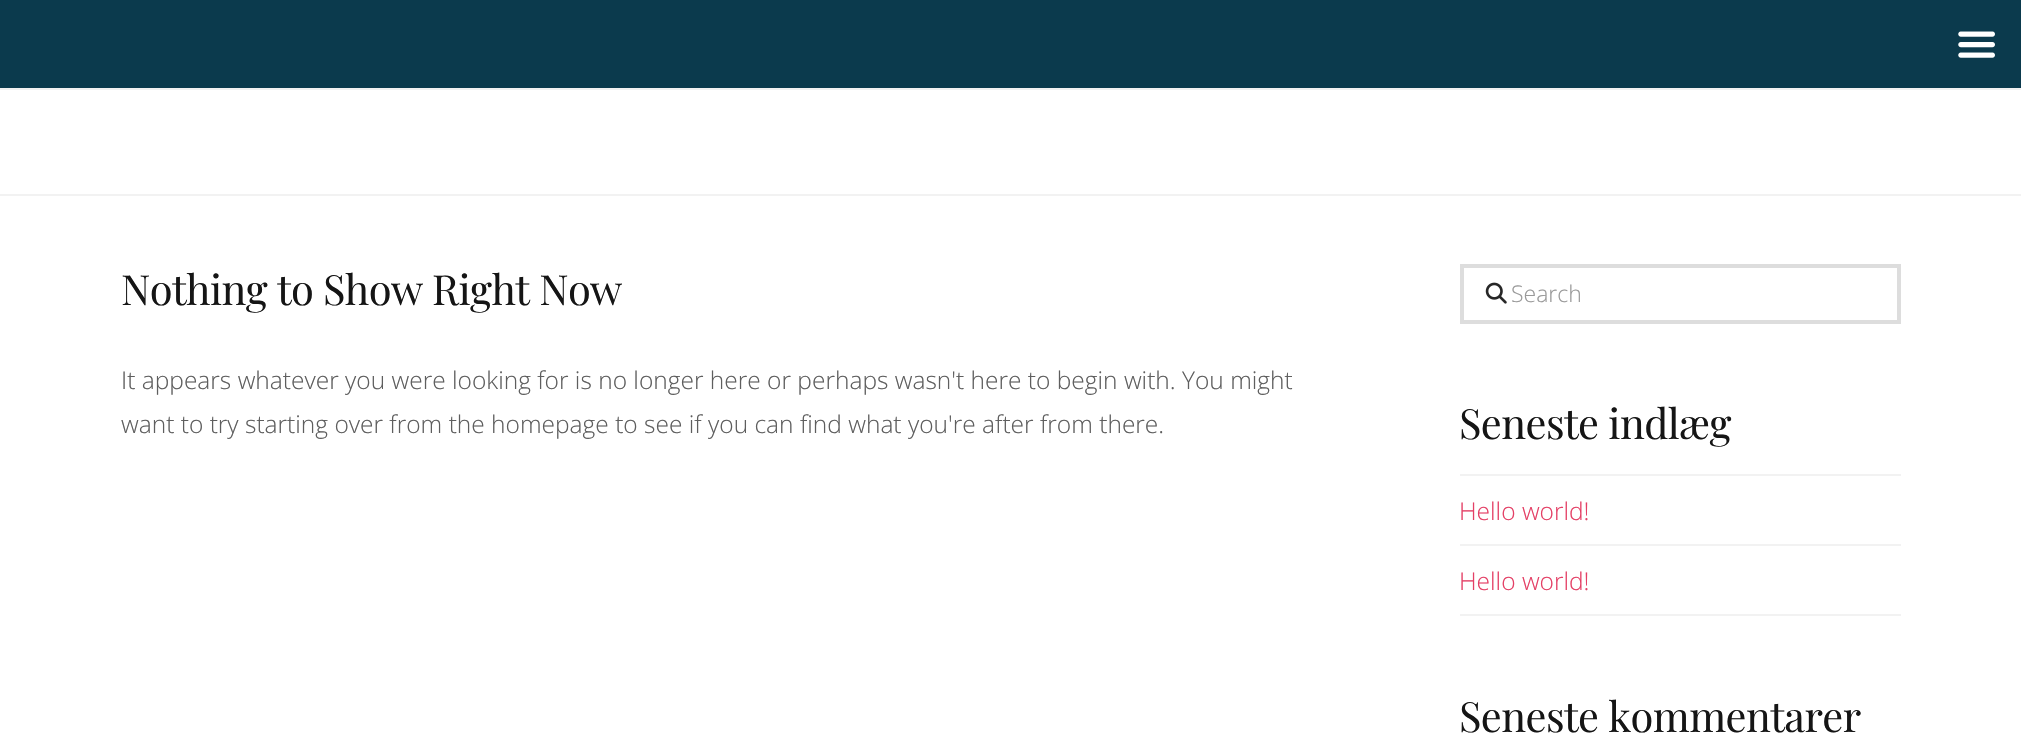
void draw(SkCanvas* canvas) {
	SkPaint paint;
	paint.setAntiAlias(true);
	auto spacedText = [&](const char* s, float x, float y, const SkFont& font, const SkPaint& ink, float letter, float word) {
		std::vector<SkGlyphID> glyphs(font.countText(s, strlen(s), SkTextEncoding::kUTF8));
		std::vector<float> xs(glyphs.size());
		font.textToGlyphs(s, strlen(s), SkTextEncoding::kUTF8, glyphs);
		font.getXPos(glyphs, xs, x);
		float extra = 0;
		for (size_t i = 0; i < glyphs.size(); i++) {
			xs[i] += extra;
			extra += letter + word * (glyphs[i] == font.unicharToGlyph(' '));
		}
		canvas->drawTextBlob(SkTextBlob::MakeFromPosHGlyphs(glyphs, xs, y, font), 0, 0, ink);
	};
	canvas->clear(0xffffffff);
	paint.setColor(0xff0b3a4d);
	canvas->drawRect(SkRect::MakeXYWH(0, 0, 2021, 88), paint);
	canvas->drawImageRect(SkImages::DeferredFromEncodedData(SkData::MakeFromFileName("img1.png")), SkRect::MakeXYWH(1958, 31, 37, 27), SkSamplingOptions());
	paint.setColor(0xfff2f2f2);
	canvas->drawRect(SkRect::MakeXYWH(0, 88, 2021, 2), paint);
	canvas->drawRect(SkRect::MakeXYWH(0, 194, 2021, 2), paint);
	SkFont f1(fontMgr->matchFamilyStyle("Playfair Display", SkFontStyle::Normal()), 41.6);
	f1.setSubpixel(true);
	paint.setColor(0xff151515);
	spacedText("Nothing to Show Right Now", 121, 305, f1, paint, -0.6, 0);
	SkFont f2(fontMgr->matchFamilyStyle("Open Sans", SkFontStyle(300, SkFontStyle::kNormal_Width, SkFontStyle::kUpright_Slant)), 24.5);
	f2.setSubpixel(true);
	paint.setColor(0xff5e5e5e);
	canvas->drawString("It appears whatever you were looking for is no longer here or perhaps wasn't here to begin with. You might", 121, 389, f2, paint);
	canvas->drawString("want to try starting over from the homepage to see if you can find what you're after from there.", 121, 433, f2, paint);
	paint.setStroke(true);
	paint.setStrokeWidth(4);
	paint.setColor(0xffdddddd);
	canvas->drawRect(SkRect::MakeXYWH(1462, 266, 437, 56), paint);
	canvas->drawImageRect(SkImages::DeferredFromEncodedData(SkData::MakeFromFileName("img2.png")), SkRect::MakeXYWH(1485, 282, 22, 22), SkSamplingOptions());
	SkFont f3(fontMgr->matchFamilyStyle("Open Sans", SkFontStyle(300, SkFontStyle::kNormal_Width, SkFontStyle::kUpright_Slant)), 23);
	f3.setSubpixel(true);
	paint.setStroke(false);
	paint.setColor(0xff999999);
	canvas->drawString("Search", 1511, 302, f3, paint);
	paint.setColor(0xff151515);
	spacedText("Seneste indlæg", 1459, 439, f1, paint, -0.6, 0);
	paint.setColor(0xfff2f2f2);
	canvas->drawRect(SkRect::MakeXYWH(1460, 474, 441, 2), paint);
	canvas->drawRect(SkRect::MakeXYWH(1460, 544, 441, 2), paint);
	paint.setColor(0xffe43f65);
	canvas->drawString("Hello world!", 1459, 520, f2, paint);
	paint.setColor(0xfff2f2f2);
	canvas->drawRect(SkRect::MakeXYWH(1460, 614, 441, 2), paint);
	paint.setColor(0xffe43f65);
	canvas->drawString("Hello world!", 1459, 590, f2, paint);
	paint.setColor(0xff151515);
	spacedText("Seneste kommentarer", 1459, 732, f1, paint, -0.6, 0);
}
